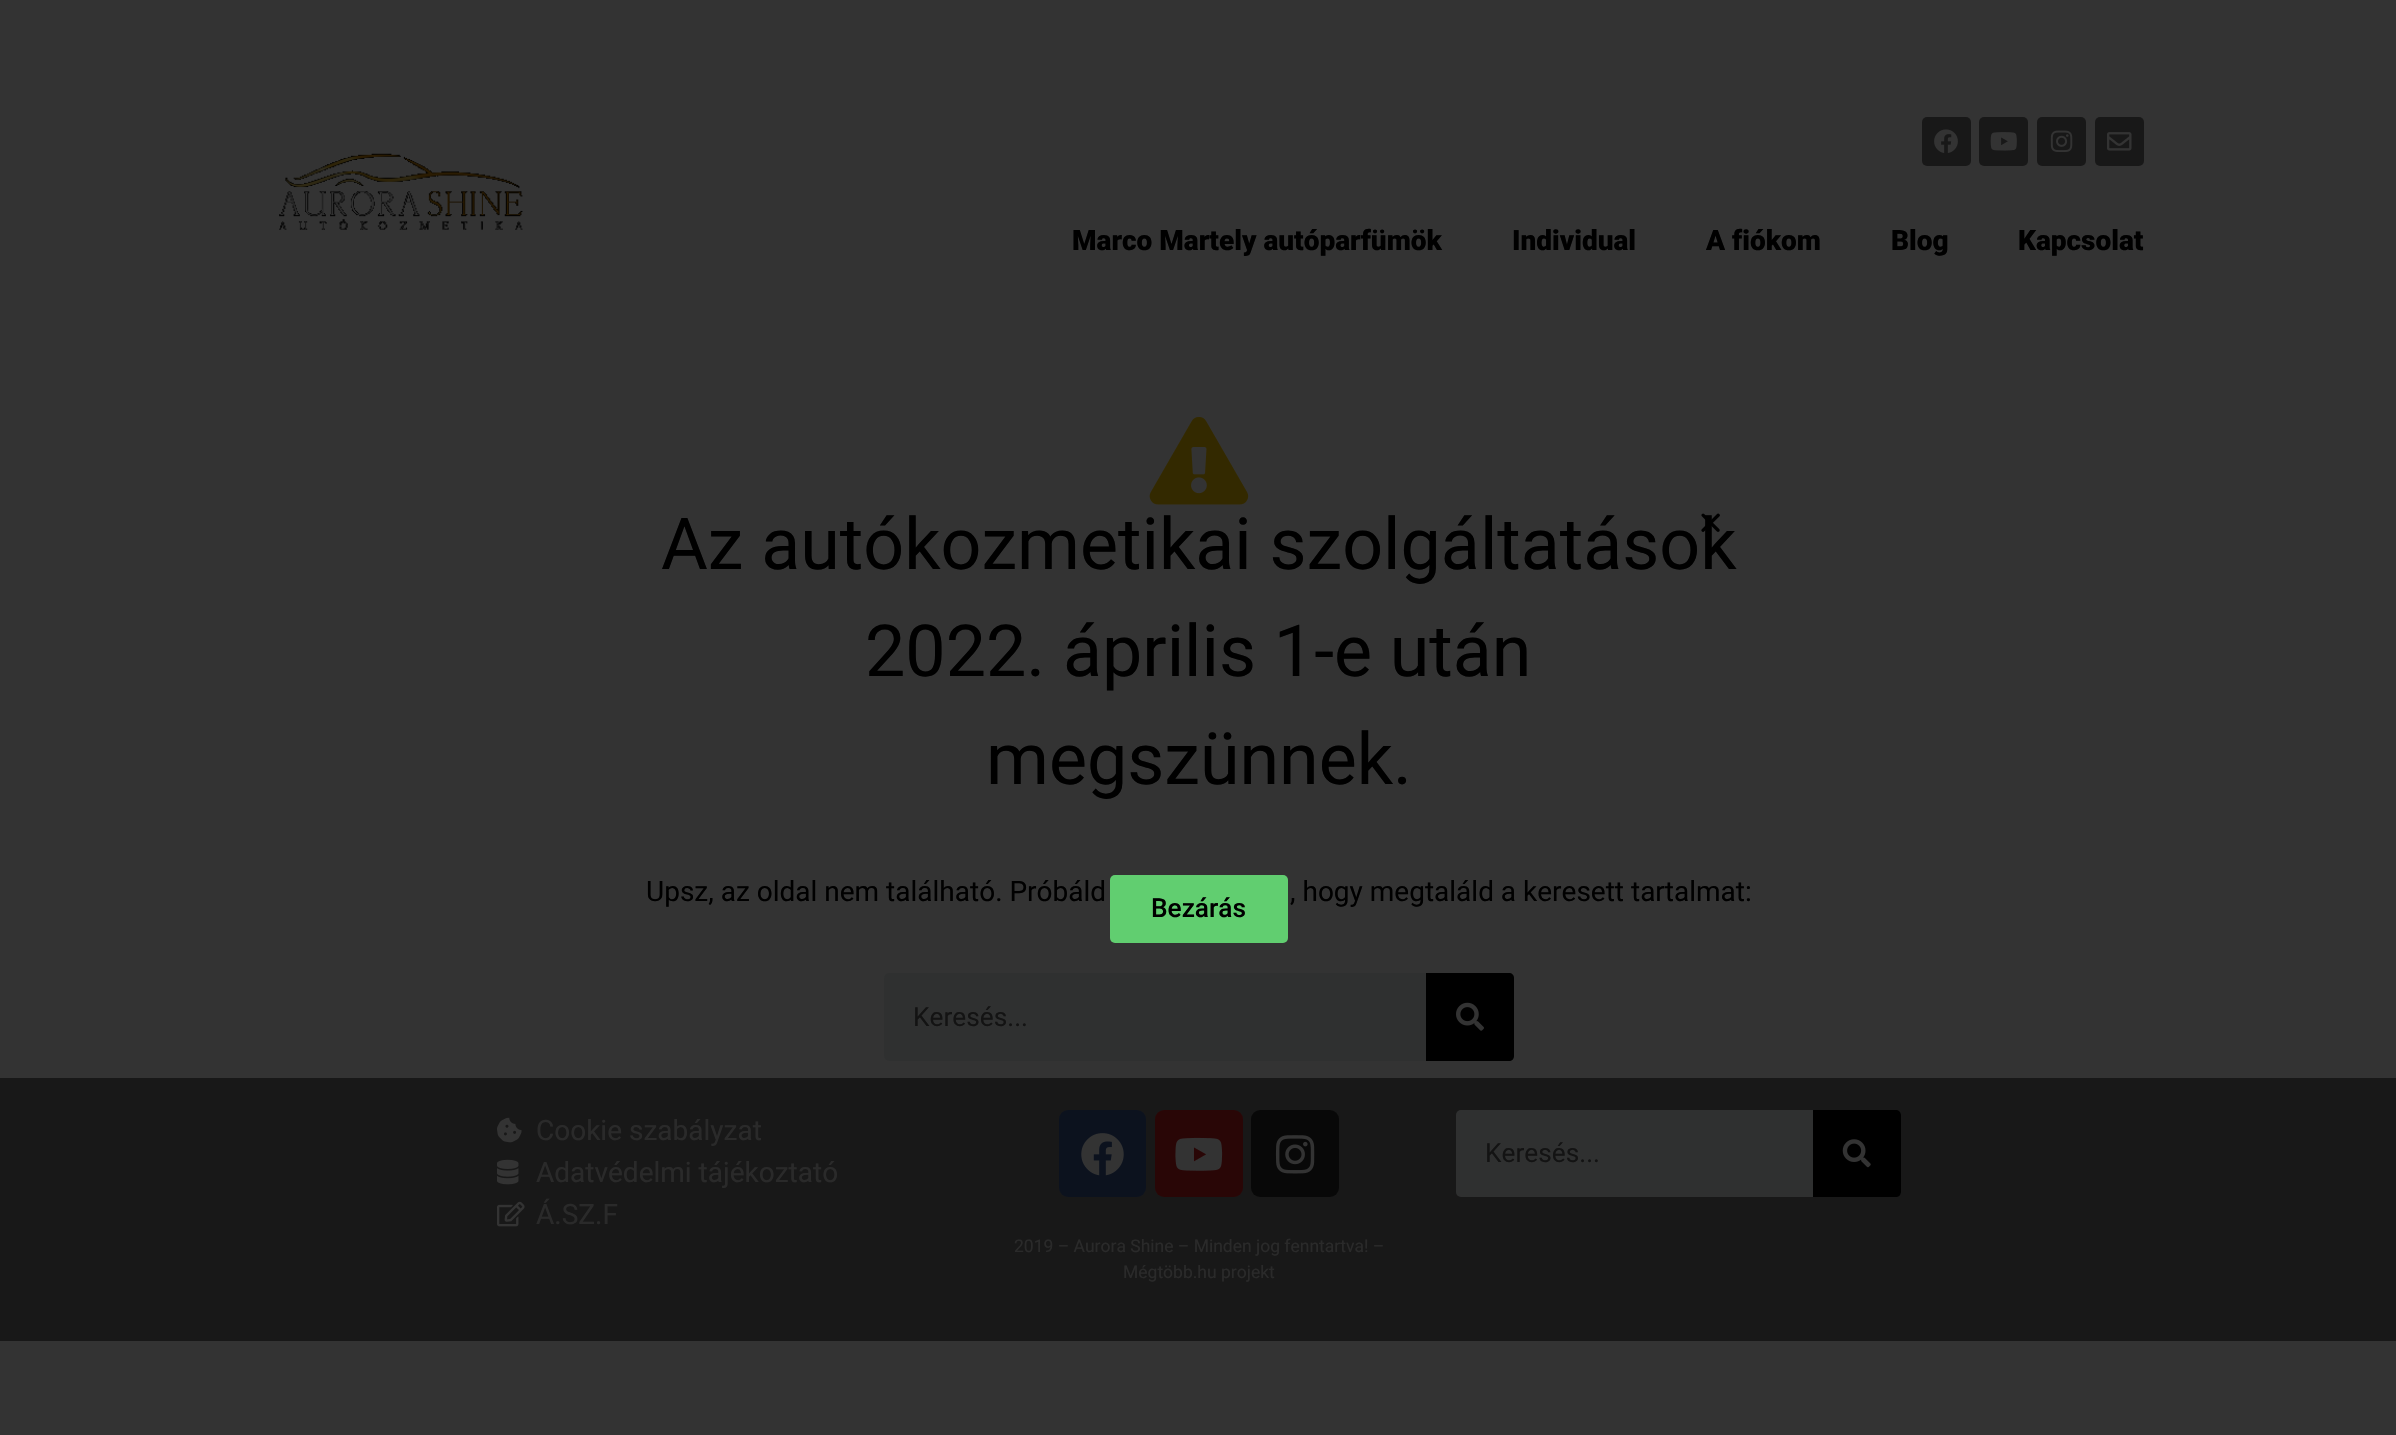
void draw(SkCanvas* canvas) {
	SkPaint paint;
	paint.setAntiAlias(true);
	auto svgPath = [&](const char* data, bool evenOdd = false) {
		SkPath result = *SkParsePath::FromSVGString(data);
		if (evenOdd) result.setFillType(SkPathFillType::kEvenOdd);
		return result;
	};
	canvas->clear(0xff333333);
	canvas->drawImageRect(SkImages::DeferredFromEncodedData(SkData::MakeFromFileName("img1.png")), SkRect::MakeXYWH(279, 153, 244, 77), SkSamplingOptions());
	paint.setColor(0xff181818);
	canvas->drawRoundRect(SkRect::MakeXYWH(1922, 117, 49, 49), 5, 5, paint);
	canvas->drawImageRect(SkImages::DeferredFromEncodedData(SkData::MakeFromFileName("img2.png")), SkRect::MakeXYWH(1934, 129, 24, 24), SkSamplingOptions());
	canvas->drawRoundRect(SkRect::MakeXYWH(1979, 117, 49, 49), 5, 5, paint);
	canvas->drawImageRect(SkImages::DeferredFromEncodedData(SkData::MakeFromFileName("img3.png")), SkRect::MakeXYWH(1990, 132, 27, 19), SkSamplingOptions());
	canvas->drawRoundRect(SkRect::MakeXYWH(2037, 117, 49, 49), 5, 5, paint);
	canvas->drawImageRect(SkImages::DeferredFromEncodedData(SkData::MakeFromFileName("img4.png")), SkRect::MakeXYWH(2050, 130, 23, 22), SkSamplingOptions());
	canvas->drawRoundRect(SkRect::MakeXYWH(2095, 117, 49, 49), 5, 5, paint);
	canvas->drawImageRect(SkImages::DeferredFromEncodedData(SkData::MakeFromFileName("img5.png")), SkRect::MakeXYWH(2107, 132, 25, 19), SkSamplingOptions());
	SkFont f1(fontMgr->matchFamilyStyle("Roboto", SkFontStyle(900, SkFontStyle::kNormal_Width, SkFontStyle::kUpright_Slant)), 28);
	f1.setSubpixel(true);
	paint.setColor(0xff000000);
	canvas->drawString("Marco Martely autóparfümök", 1072, 250, f1, paint);
	canvas->drawString("Individual", 1512, 250, f1, paint);
	canvas->drawString("A fiókom", 1706, 250, f1, paint);
	canvas->drawString("Blog", 1891, 250, f1, paint);
	canvas->drawString("Kapcsolat", 2018, 250, f1, paint);
	SkFont f2(fontMgr->matchFamilyStyle("Roboto", SkFontStyle::Normal()), 71.75);
	f2.setSubpixel(true);
	canvas->drawString("Az autókozmetikai szolgáltatások", 661, 569, f2, paint);
	canvas->drawImageRect(SkImages::DeferredFromEncodedData(SkData::MakeFromFileName("img6.png")), SkRect::MakeXYWH(1701, 513, 19, 19), SkSamplingOptions());
	canvas->drawString("2022. április 1-e után", 865, 676, f2, paint);
	canvas->drawString("megszünnek.", 986, 784, f2, paint);
	paint.setColor(0xff61ce70);
	canvas->drawRoundRect(SkRect::MakeXYWH(1110, 875, 178, 68), 5, 5, paint);
	SkFont f3(fontMgr->matchFamilyStyle("Roboto", SkFontStyle(500, SkFontStyle::kNormal_Width, SkFontStyle::kUpright_Slant)), 26.25);
	f3.setSubpixel(true);
	paint.setColor(0xff000000);
	canvas->drawString("Bezárás", 1151, 917, f3, paint);
	canvas->drawImageRect(SkImages::DeferredFromEncodedData(SkData::MakeFromFileName("img7.png")), SkRect::MakeXYWH(1149, 416, 100, 89), SkSamplingOptions());
	SkFont f4(fontMgr->matchFamilyStyle("Roboto", SkFontStyle::Normal()), 28);
	f4.setSubpixel(true);
	canvas->drawString("Upsz, az oldal nem található. Próbáld", 646, 901, f4, paint);
	canvas->drawString(", hogy megtaláld a keresett tartalmat:", 1290, 901, f4, paint);
	paint.setColor(0xff2f3030);
	canvas->drawRoundRect(SkRect::MakeXYWH(884, 973, 630, 88), 5, 5, paint);
	SkFont f5(fontMgr->matchFamilyStyle("Roboto", SkFontStyle::Normal()), 26.25);
	f5.setSubpixel(true);
	paint.setColor(0xff131313);
	canvas->drawString("Keresés...", 913, 1026, f5, paint);
	paint.setColor(0xff000000);
	canvas->drawPath(svgPath("M1426 973H1509C1512 973 1514 975 1514 978V1056C1514 1059 1512 1061 1509 1061H1426Z"), paint);
	canvas->drawImageRect(SkImages::DeferredFromEncodedData(SkData::MakeFromFileName("img8.png")), SkRect::MakeXYWH(1456, 1002, 28, 29), SkSamplingOptions());
	paint.setColor(0xff181818);
	canvas->drawRect(SkRect::MakeXYWH(0, 1078, 2396, 263), paint);
	canvas->drawImageRect(SkImages::DeferredFromEncodedData(SkData::MakeFromFileName("img9.png")), SkRect::MakeXYWH(497, 1117, 25, 26), SkSamplingOptions());
	paint.setColor(0xff2a2a2a);
	canvas->drawString("Cookie szabályzat", 536, 1140, f4, paint);
	canvas->drawImageRect(SkImages::DeferredFromEncodedData(SkData::MakeFromFileName("img10.png")), SkRect::MakeXYWH(497, 1159, 22, 26), SkSamplingOptions());
	canvas->drawString("Adatvédelmi tájékoztató", 536, 1182, f4, paint);
	canvas->drawImageRect(SkImages::DeferredFromEncodedData(SkData::MakeFromFileName("img11.png")), SkRect::MakeXYWH(497, 1201, 28, 26), SkSamplingOptions());
	canvas->drawString("Á.SZ.F", 536, 1224, f4, paint);
	paint.setColor(0xff2f3030);
	canvas->drawRoundRect(SkRect::MakeXYWH(1456, 1110, 445, 87), 5, 5, paint);
	paint.setColor(0xff131313);
	canvas->drawString("Keresés...", 1485, 1162, f5, paint);
	paint.setColor(0xff000000);
	canvas->drawPath(svgPath("M1813 1110H1896C1899 1110 1901 1112 1901 1115V1192C1901 1195 1899 1197 1896 1197H1813Z"), paint);
	canvas->drawImageRect(SkImages::DeferredFromEncodedData(SkData::MakeFromFileName("img12.png")), SkRect::MakeXYWH(1842, 1139, 29, 29), SkSamplingOptions());
	paint.setColor(0xff0c121e);
	canvas->drawRoundRect(SkRect::MakeXYWH(1059, 1110, 87, 87), 9, 9, paint);
	canvas->drawImageRect(SkImages::DeferredFromEncodedData(SkData::MakeFromFileName("img13.png")), SkRect::MakeXYWH(1081, 1133, 43, 43), SkSamplingOptions());
	paint.setColor(0xff290606);
	canvas->drawRoundRect(SkRect::MakeXYWH(1155, 1110, 88, 87), 9, 9, paint);
	canvas->drawImageRect(SkImages::DeferredFromEncodedData(SkData::MakeFromFileName("img14.png")), SkRect::MakeXYWH(1175, 1137, 48, 34), SkSamplingOptions());
	paint.setColor(0xff080808);
	canvas->drawRoundRect(SkRect::MakeXYWH(1251, 1110, 88, 87), 9, 9, paint);
	canvas->drawImageRect(SkImages::DeferredFromEncodedData(SkData::MakeFromFileName("img15.png")), SkRect::MakeXYWH(1275, 1135, 40, 39), SkSamplingOptions());
	SkFont f6(fontMgr->matchFamilyStyle("Roboto", SkFontStyle::Normal()), 17.5);
	f6.setSubpixel(true);
	paint.setColor(0xff2a2a2a);
	canvas->drawString("2019 – Aurora Shine – Minden jog fenntartva! –", 1014, 1252, f6, paint);
	canvas->drawString("Mégtöbb.hu projekt", 1123, 1278, f6, paint);
}
